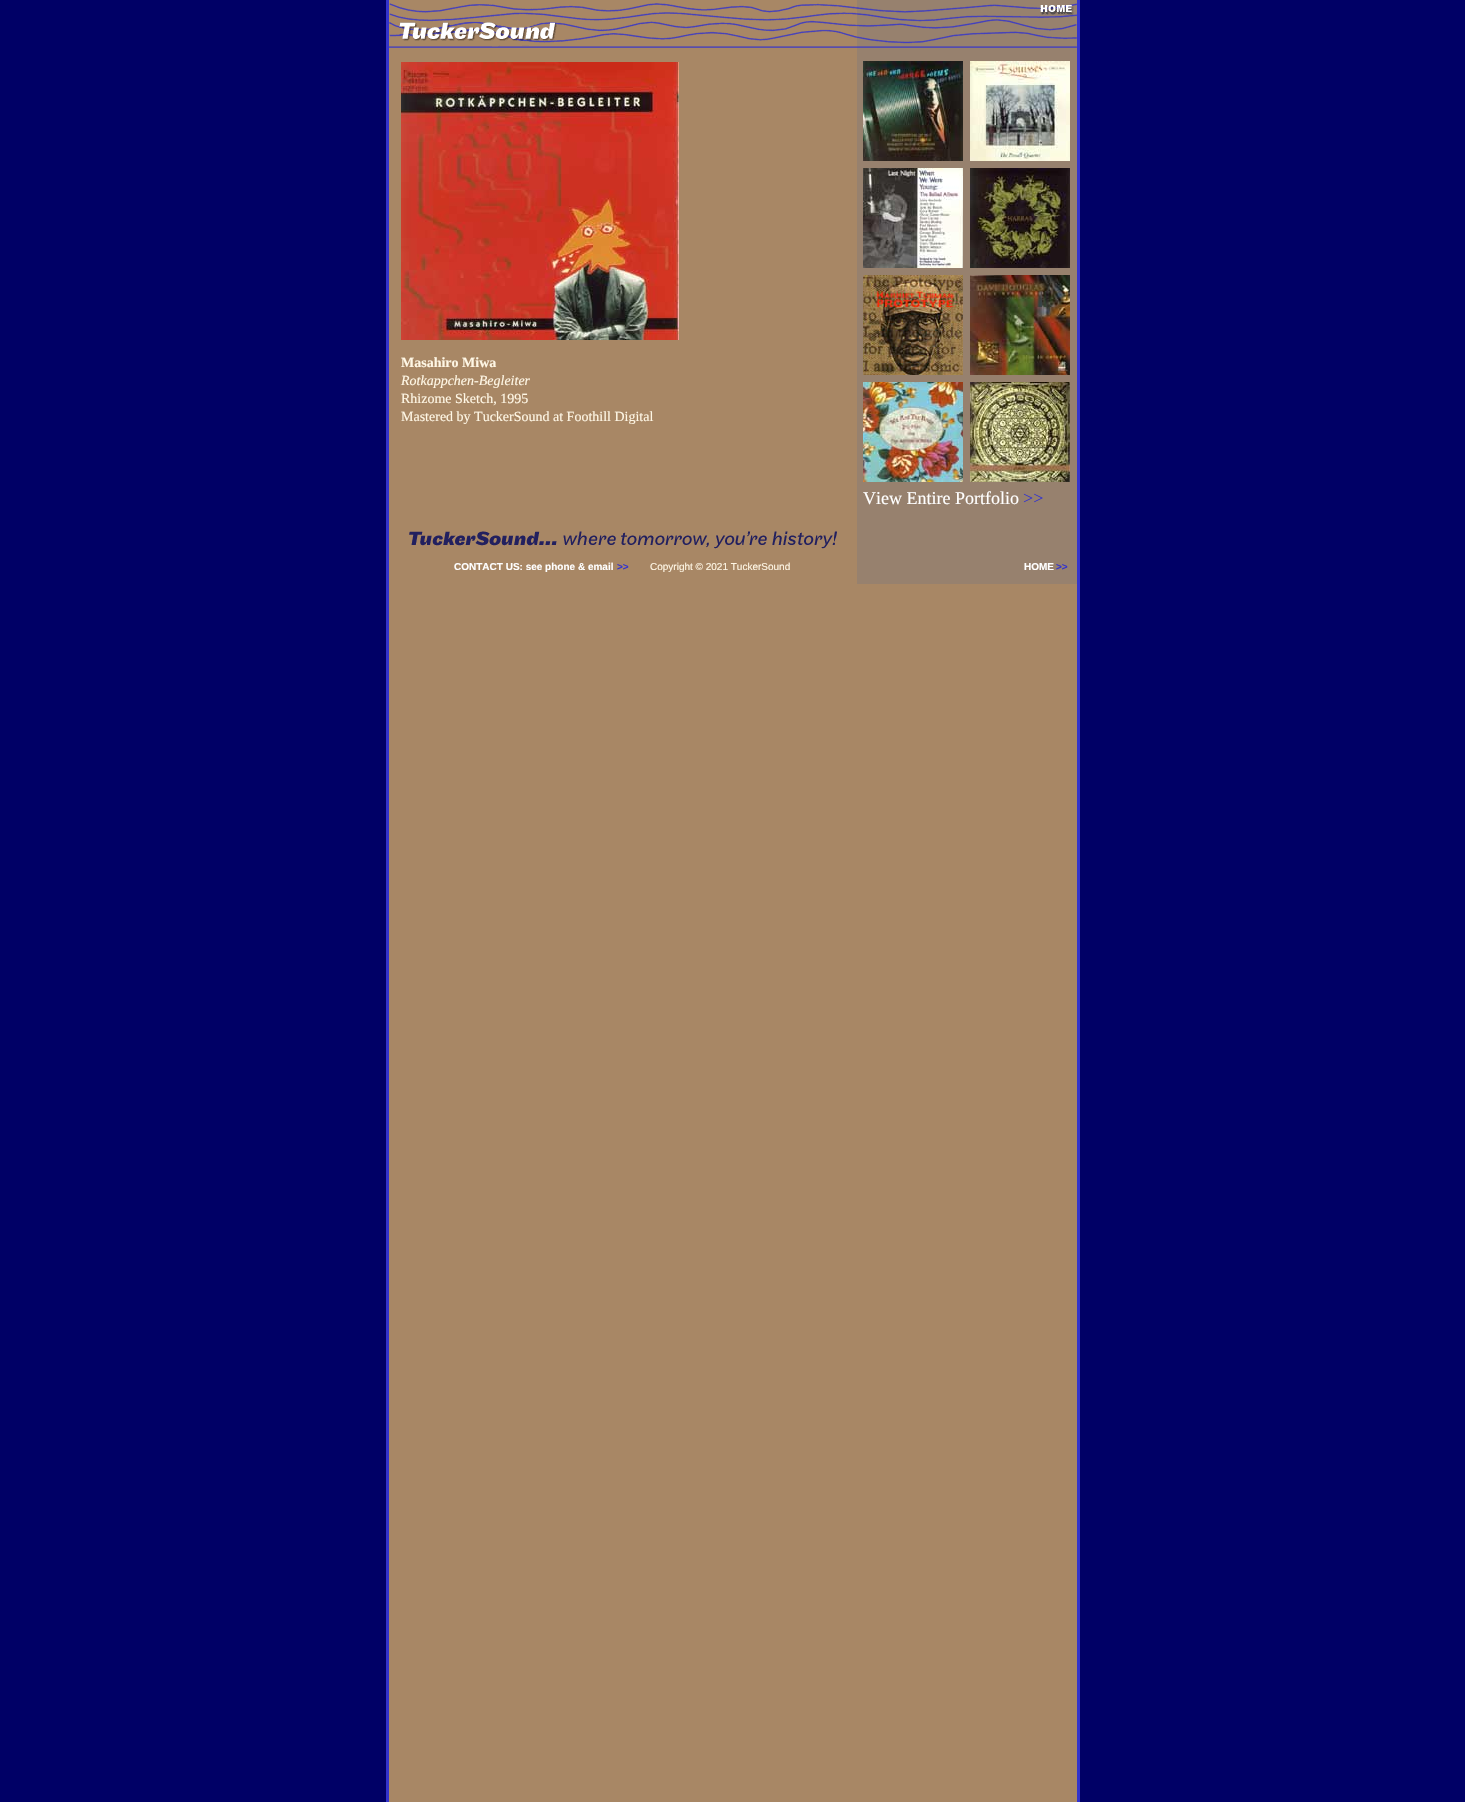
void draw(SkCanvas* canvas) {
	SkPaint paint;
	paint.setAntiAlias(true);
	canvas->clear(0xffa88765);
	paint.setColor(0xff000066);
	canvas->drawRect(SkRect::MakeXYWH(0, 0, 386, 1802), paint);
	paint.setColor(0xff3333cc);
	canvas->drawRect(SkRect::MakeXYWH(386, 0, 3, 1802), paint);
	canvas->drawImageRect(SkImages::DeferredFromEncodedData(SkData::MakeFromFileName("img1.png")), SkRect::MakeXYWH(389, 3, 468, 45), SkSamplingOptions());
	paint.setColor(0xff97816e);
	canvas->drawRect(SkRect::MakeXYWH(857, 0, 220, 584), paint);
	canvas->drawImageRect(SkImages::DeferredFromEncodedData(SkData::MakeFromFileName("img2.png")), SkRect::MakeXYWH(857, 3, 220, 45), SkSamplingOptions());
	canvas->drawImageRect(SkImages::DeferredFromEncodedData(SkData::MakeFromFileName("img3.png")), SkRect::MakeXYWH(401, 62, 278, 278), SkSamplingOptions());
	SkFont f1(fontMgr->matchFamilyStyle("Liberation Serif", SkFontStyle::Bold()), 14);
	f1.setSubpixel(true);
	paint.setColor(0xfffff7e5);
	canvas->drawString("Masahiro Miwa", 401, 367, f1, paint);
	SkFont f2(fontMgr->matchFamilyStyle("Liberation Serif", SkFontStyle::Italic()), 14);
	f2.setSubpixel(true);
	canvas->drawString("Rotkappchen-Begleiter", 401, 385, f2, paint);
	SkFont f3(fontMgr->matchFamilyStyle("Liberation Serif", SkFontStyle::Normal()), 14);
	f3.setSubpixel(true);
	canvas->drawString("Rhizome Sketch, 1995", 401, 403, f3, paint);
	canvas->drawString("Mastered by TuckerSound at Foothill Digital", 401, 421, f3, paint);
	canvas->drawImageRect(SkImages::DeferredFromEncodedData(SkData::MakeFromFileName("img4.png")), SkRect::MakeXYWH(863, 61, 100, 100), SkSamplingOptions());
	canvas->drawImageRect(SkImages::DeferredFromEncodedData(SkData::MakeFromFileName("img5.png")), SkRect::MakeXYWH(970, 61, 100, 100), SkSamplingOptions());
	canvas->drawImageRect(SkImages::DeferredFromEncodedData(SkData::MakeFromFileName("img6.png")), SkRect::MakeXYWH(863, 168, 100, 100), SkSamplingOptions());
	canvas->drawImageRect(SkImages::DeferredFromEncodedData(SkData::MakeFromFileName("img7.png")), SkRect::MakeXYWH(970, 168, 100, 100), SkSamplingOptions());
	canvas->drawImageRect(SkImages::DeferredFromEncodedData(SkData::MakeFromFileName("img8.png")), SkRect::MakeXYWH(863, 275, 100, 100), SkSamplingOptions());
	canvas->drawImageRect(SkImages::DeferredFromEncodedData(SkData::MakeFromFileName("img9.png")), SkRect::MakeXYWH(970, 275, 100, 100), SkSamplingOptions());
	canvas->drawImageRect(SkImages::DeferredFromEncodedData(SkData::MakeFromFileName("img10.png")), SkRect::MakeXYWH(863, 382, 100, 100), SkSamplingOptions());
	canvas->drawImageRect(SkImages::DeferredFromEncodedData(SkData::MakeFromFileName("img11.png")), SkRect::MakeXYWH(970, 382, 100, 100), SkSamplingOptions());
	SkFont f4(fontMgr->matchFamilyStyle("Liberation Serif", SkFontStyle::Normal()), 18);
	f4.setSubpixel(true);
	paint.setColor(0xffffffff);
	canvas->drawString("View Entire Portfolio", 863, 504, f4, paint);
	paint.setColor(0xff3333cc);
	canvas->drawString(">>", 1023, 504, f4, paint);
	canvas->drawImageRect(SkImages::DeferredFromEncodedData(SkData::MakeFromFileName("img12.png")), SkRect::MakeXYWH(409, 531, 428, 18), SkSamplingOptions());
	SkFont f5(fontMgr->matchFamilyStyle("Liberation Sans", SkFontStyle::Bold()), 10);
	f5.setSubpixel(true);
	paint.setColor(0xffffffff);
	canvas->drawString("CONTACT US: see phone & email", 454, 570, f5, paint);
	paint.setColor(0xff3333cc);
	canvas->drawString(">>", 617, 570, f5, paint);
	SkFont f6(fontMgr->matchFamilyStyle("Liberation Sans", SkFontStyle::Normal()), 10);
	f6.setSubpixel(true);
	paint.setColor(0xfffff7e5);
	canvas->drawString("Copyright © 2021 TuckerSound", 650, 570, f6, paint);
	paint.setColor(0xffffffff);
	canvas->drawString("HOME", 1024, 570, f5, paint);
	paint.setColor(0xff3333cc);
	canvas->drawString(">>", 1056, 570, f5, paint);
	paint.setColor(0xff000066);
	canvas->drawRect(SkRect::MakeXYWH(1080, 0, 385, 1802), paint);
	paint.setColor(0xff3333cc);
	canvas->drawRect(SkRect::MakeXYWH(1077, 0, 3, 1802), paint);
}
